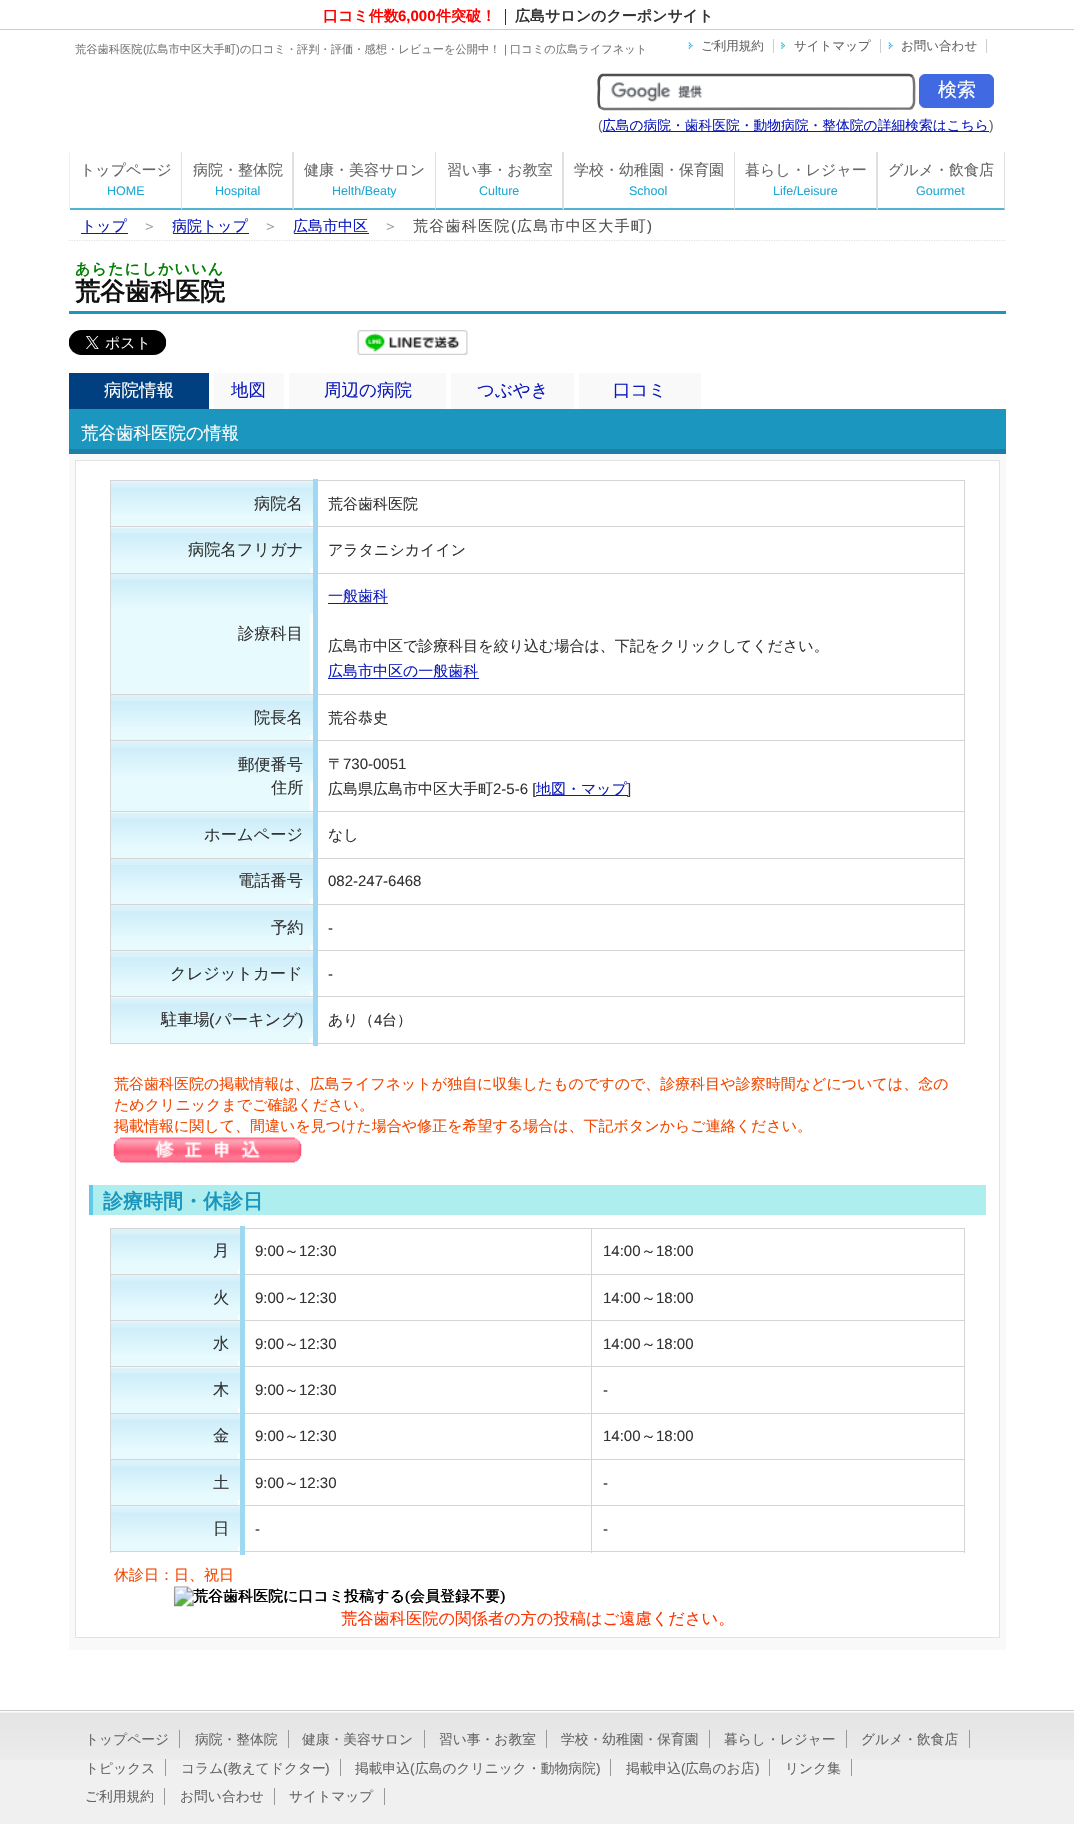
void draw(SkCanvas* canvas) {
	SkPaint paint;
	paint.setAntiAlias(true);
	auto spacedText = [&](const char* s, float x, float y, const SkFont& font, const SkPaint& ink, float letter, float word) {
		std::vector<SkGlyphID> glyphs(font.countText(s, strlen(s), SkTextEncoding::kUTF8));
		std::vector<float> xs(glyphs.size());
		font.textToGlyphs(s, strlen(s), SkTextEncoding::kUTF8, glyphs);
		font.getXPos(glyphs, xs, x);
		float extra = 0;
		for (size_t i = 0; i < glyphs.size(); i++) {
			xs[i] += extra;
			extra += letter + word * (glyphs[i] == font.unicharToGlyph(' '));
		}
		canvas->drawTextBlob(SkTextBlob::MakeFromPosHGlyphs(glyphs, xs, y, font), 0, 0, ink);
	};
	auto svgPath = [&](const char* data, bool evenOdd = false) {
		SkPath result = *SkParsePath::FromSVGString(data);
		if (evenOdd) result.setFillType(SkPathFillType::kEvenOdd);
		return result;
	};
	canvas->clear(0xffffffff);
	paint.setColor(0xffcccccc);
	canvas->drawRect(SkRect::MakeXYWH(0, 29, 1074, 1), paint);
	SkFont f1(fontMgr->matchFamilyStyle("WenQuanYi Zen Hei", SkFontStyle::Bold()), 15);
	f1.setSubpixel(true);
	paint.setColor(0xffff0000);
	canvas->drawString("口コミ件数", 323, 21, f1, paint);
	SkFont f2(fontMgr->matchFamilyStyle("Liberation Sans", SkFontStyle::Bold()), 15);
	f2.setSubpixel(true);
	canvas->drawString("6,000", 398, 21, f2, paint);
	canvas->drawString("件突破！", 436, 21, f1, paint);
	paint.setColor(0xff333333);
	canvas->drawRect(SkRect::MakeXYWH(505, 9, 1, 16), paint);
	canvas->drawString("広島サロンのクーポンサイト", 515, 21, f1, paint);
	SkFont f3(fontMgr->matchFamilyStyle("WenQuanYi Zen Hei", SkFontStyle(500, SkFontStyle::kNormal_Width, SkFontStyle::kUpright_Slant)), 11.25);
	f3.setSubpixel(true);
	paint.setColor(0xff777777);
	canvas->drawString("荒谷歯科医院", 75, 53, f3, paint);
	SkFont f4(fontMgr->matchFamilyStyle("Liberation Sans", SkFontStyle::Normal()), 11.25);
	f4.setSubpixel(true);
	canvas->drawString("(", 143, 53, f4, paint);
	canvas->drawString("広島市中区大手町", 146, 53, f3, paint);
	canvas->drawString(")", 236, 53, f4, paint);
	canvas->drawString("の口コミ・評判・評価・感想・レビューを公開中！", 240, 53, f3, paint);
	canvas->drawString("|", 504, 53, f4, paint);
	canvas->drawString("口コミの広島ライフネット", 510, 53, f3, paint);
	canvas->drawImageRect(SkImages::DeferredFromEncodedData(SkData::MakeFromFileName("img1.png")), SkRect::MakeXYWH(688, 42, 5, 7), SkSamplingOptions());
	SkFont f5(fontMgr->matchFamilyStyle("WenQuanYi Zen Hei", SkFontStyle(500, SkFontStyle::kNormal_Width, SkFontStyle::kUpright_Slant)), 12.5);
	f5.setSubpixel(true);
	paint.setColor(0xff666666);
	canvas->drawString("ご利用規約", 701, 50, f5, paint);
	paint.setColor(0xffcccccc);
	canvas->drawRect(SkRect::MakeXYWH(773, 39, 1, 14), paint);
	canvas->drawImageRect(SkImages::DeferredFromEncodedData(SkData::MakeFromFileName("img2.png")), SkRect::MakeXYWH(781, 42, 4, 7), SkSamplingOptions());
	paint.setColor(0xff666666);
	canvas->drawString("サイトマップ", 794, 50, f5, paint);
	paint.setColor(0xffcccccc);
	canvas->drawRect(SkRect::MakeXYWH(880, 39, 1, 14), paint);
	canvas->drawImageRect(SkImages::DeferredFromEncodedData(SkData::MakeFromFileName("img1.png")), SkRect::MakeXYWH(888, 42, 5, 7), SkSamplingOptions());
	paint.setColor(0xff666666);
	canvas->drawString("お問い合わせ", 901, 50, f5, paint);
	paint.setColor(0xffcccccc);
	canvas->drawRect(SkRect::MakeXYWH(986, 39, 1, 14), paint);
	canvas->drawImageRect(SkImages::DeferredFromEncodedData(SkData::MakeFromFileName("img3.png")), SkRect::MakeXYWH(611, 82, 91, 20), SkSamplingOptions());
	paint.setStroke(true);
	paint.setStrokeWidth(2.5);
	paint.setColor(0xff767676);
	canvas->drawPath(svgPath("M912.5 76.5C915 79.5 914 92 914 96C914 99.5 915.5 107 910 108.5L604 109C602.5 108.5 601 108 600 107.5"), paint);
	paint.setColor(0xff4f4f4f);
	canvas->drawPath(svgPath("M600 107.5C597.5 104.5 599 92 599 88C599 84 597 77 602.5 75H909C910 75 911.5 75.5 912.5 76.5"), paint);
	paint.setStroke(false);
	paint.setColor(0xff4169e1);
	canvas->drawRoundRect(SkRect::MakeXYWH(919.5, 74.5, 74, 33), 5.5, 5.5, paint);
	paint.setStroke(true);
	paint.setStrokeWidth(1);
	canvas->drawRoundRect(SkRect::MakeXYWH(919.5, 74.5, 74, 33), 5.5, 5.5, paint);
	SkFont f6(fontMgr->matchFamilyStyle("WenQuanYi Zen Hei", SkFontStyle(500, SkFontStyle::kNormal_Width, SkFontStyle::kUpright_Slant)), 19);
	f6.setSubpixel(true);
	paint.setStroke(false);
	paint.setColor(0xffffffff);
	canvas->drawString("検索", 938, 96, f6, paint);
	SkFont f7(fontMgr->matchFamilyStyle("Liberation Sans", SkFontStyle::Normal()), 13.75);
	f7.setSubpixel(true);
	paint.setColor(0xff666666);
	canvas->drawString("(", 598, 130, f7, paint);
	paint.setColor(0xff0e1bbb);
	canvas->drawRect(SkRect::MakeXYWH(603, 131, 386, 1), paint);
	SkFont f8(fontMgr->matchFamilyStyle("WenQuanYi Zen Hei", SkFontStyle(500, SkFontStyle::kNormal_Width, SkFontStyle::kUpright_Slant)), 13.75);
	f8.setSubpixel(true);
	canvas->drawString("広島の病院・歯科医院・動物病院・整体院の詳細検索はこちら", 602, 130, f8, paint);
	paint.setColor(0xff666666);
	canvas->drawString(")", 989, 130, f7, paint);
	paint.setColor(0xfff0f0f0);
	canvas->drawRect(SkRect::MakeXYWH(69, 153, 1, 55), paint);
	paint.setColor(0xffe0e0e0);
	canvas->drawPath(svgPath("M182 152V210L181 208V152Z"), paint);
	paint.setColor(0xff53b3d2);
	canvas->drawPath(svgPath("M182 210H70V208H181Z"), paint);
	SkFont f9(fontMgr->matchFamilyStyle("WenQuanYi Zen Hei", SkFontStyle(500, SkFontStyle::kNormal_Width, SkFontStyle::kUpright_Slant)), 15);
	f9.setSubpixel(true);
	paint.setColor(0xff666666);
	canvas->drawString("トップページ", 80, 175, f9, paint);
	SkFont f10(fontMgr->matchFamilyStyle("Liberation Sans", SkFontStyle::Normal()), 12.5);
	f10.setSubpixel(true);
	paint.setColor(0xff1fa8d6);
	canvas->drawString("HOME", 107, 195, f10, paint);
	paint.setColor(0xffe0e0e0);
	canvas->drawPath(svgPath("M294 152V210L292 208V152Z"), paint);
	paint.setColor(0xff53b3d2);
	canvas->drawPath(svgPath("M294 210H182V208H292Z"), paint);
	paint.setColor(0xff666666);
	canvas->drawString("病院・整体院", 193, 175, f9, paint);
	paint.setColor(0xff1fa8d6);
	canvas->drawString("Hospital", 215, 195, f10, paint);
	paint.setColor(0xffe0e0e0);
	canvas->drawPath(svgPath("M436 152V210L435 208V152Z"), paint);
	paint.setColor(0xff53b3d2);
	canvas->drawPath(svgPath("M436 210H294V208H435Z"), paint);
	paint.setColor(0xff666666);
	canvas->drawString("健康・美容サロン", 304, 175, f9, paint);
	paint.setColor(0xff1fa8d6);
	canvas->drawString("Helth/Beaty", 332, 195, f10, paint);
	paint.setColor(0xffe0e0e0);
	canvas->drawPath(svgPath("M564 152V210L562 208V152Z"), paint);
	paint.setColor(0xff53b3d2);
	canvas->drawPath(svgPath("M564 210H436V208H562Z"), paint);
	paint.setColor(0xff666666);
	canvas->drawString("習い事・お教室", 447, 175, f9, paint);
	paint.setColor(0xff1fa8d6);
	canvas->drawString("Culture", 479, 195, f10, paint);
	paint.setColor(0xffe0e0e0);
	canvas->drawPath(svgPath("M735 152V210L734 208V152Z"), paint);
	paint.setColor(0xff53b3d2);
	canvas->drawPath(svgPath("M735 210H564V208H734Z"), paint);
	paint.setColor(0xff666666);
	canvas->drawString("学校・幼稚園・保育園", 574, 175, f9, paint);
	paint.setColor(0xff1fa8d6);
	canvas->drawString("School", 629, 195, f10, paint);
	paint.setColor(0xffe0e0e0);
	canvas->drawPath(svgPath("M878 152V210L876 208V152Z"), paint);
	paint.setColor(0xff53b3d2);
	canvas->drawPath(svgPath("M878 210H735V208H876Z"), paint);
	paint.setColor(0xff666666);
	canvas->drawString("暮らし・レジャー", 745, 175, f9, paint);
	paint.setColor(0xff1fa8d6);
	canvas->drawString("Life/Leisure", 773, 195, f10, paint);
	paint.setColor(0xffe0e0e0);
	canvas->drawPath(svgPath("M1005 152V210L1004 208V152Z"), paint);
	paint.setColor(0xff53b3d2);
	canvas->drawPath(svgPath("M1005 210H878V208H1004Z"), paint);
	paint.setColor(0xff666666);
	canvas->drawString("グルメ・飲食店", 888, 175, f9, paint);
	paint.setColor(0xff1fa8d6);
	canvas->drawString("Gourmet", 916, 195, f10, paint);
	paint.setStroke(true);
	paint.setStrokeWidth(1.2);
	paint.setColor(0xffe1e1e1);
	paint.setPathEffect(SkDashPathEffect::Make({{1.25f, 1.25f}}, 0));
	canvas->drawPath(svgPath("M69 240.5H1006"), paint);
	paint.setPathEffect(nullptr);
	paint.setStroke(false);
	paint.setColor(0xff0e1bbb);
	canvas->drawString("トップ", 81, 231, f9, paint);
	canvas->drawRect(SkRect::MakeXYWH(81, 233, 47, 1), paint);
	paint.setColor(0xff999999);
	canvas->drawString("＞", 142, 231, f9, paint);
	paint.setColor(0xff0e1bbb);
	canvas->drawString("病院トップ", 172, 231, f9, paint);
	canvas->drawRect(SkRect::MakeXYWH(173, 233, 76, 1), paint);
	paint.setColor(0xff999999);
	canvas->drawString("＞", 263, 231, f9, paint);
	paint.setColor(0xff0e1bbb);
	canvas->drawString("広島市中区", 293, 231, f9, paint);
	canvas->drawRect(SkRect::MakeXYWH(294, 233, 75, 1), paint);
	paint.setColor(0xff999999);
	canvas->drawString("＞", 383, 231, f9, paint);
	paint.setColor(0xff505050);
	spacedText("荒谷歯科医院", 413, 231, f9, paint, 1.25, 0);
	SkFont f11(fontMgr->matchFamilyStyle("Liberation Sans", SkFontStyle::Normal()), 15);
	f11.setSubpixel(true);
	spacedText("(", 511, 231, f11, paint, 1.25, 0);
	spacedText("広島市中区大手町", 517, 231, f9, paint, 1.25, 0);
	spacedText(")", 647, 231, f11, paint, 1.25, 0);
	paint.setColor(0xff1b96be);
	canvas->drawRect(SkRect::MakeXYWH(69, 311, 937, 3), paint);
	paint.setColor(0xff008000);
	spacedText("あらたにしかいいん", 75, 274, f1, paint, 1.25, 0);
	SkFont f12(fontMgr->matchFamilyStyle("WenQuanYi Zen Hei", SkFontStyle::Bold()), 25);
	f12.setSubpixel(true);
	paint.setColor(0xff111111);
	canvas->drawString("荒谷歯科医院", 75, 300, f12, paint);
	canvas->drawImageRect(SkImages::DeferredFromEncodedData(SkData::MakeFromFileName("img4.png")), SkRect::MakeXYWH(69, 330, 98, 25), SkSamplingOptions());
	canvas->drawImageRect(SkImages::DeferredFromEncodedData(SkData::MakeFromFileName("img5.png")), SkRect::MakeXYWH(357, 330, 111, 25), SkSamplingOptions());
	paint.setColor(0xff004080);
	canvas->drawRect(SkRect::MakeXYWH(69, 373, 140, 36), paint);
	SkFont f13(fontMgr->matchFamilyStyle("WenQuanYi Zen Hei", SkFontStyle(500, SkFontStyle::kNormal_Width, SkFontStyle::kUpright_Slant)), 17.5);
	f13.setSubpixel(true);
	paint.setColor(0xffffffff);
	canvas->drawString("病院情報", 104, 396, f13, paint);
	paint.setColor(0xfff9f9f9);
	canvas->drawRect(SkRect::MakeXYWH(214, 373, 70, 36), paint);
	paint.setColor(0xff0e1bbb);
	canvas->drawString("地図", 231, 396, f13, paint);
	paint.setColor(0xfff9f9f9);
	canvas->drawRect(SkRect::MakeXYWH(289, 373, 157, 36), paint);
	paint.setColor(0xff0e1bbb);
	canvas->drawString("周辺の病院", 324, 396, f13, paint);
	paint.setColor(0xfff9f9f9);
	canvas->drawRect(SkRect::MakeXYWH(451, 373, 123, 36), paint);
	paint.setColor(0xff0e1bbb);
	canvas->drawString("つぶやき", 477, 396, f13, paint);
	paint.setColor(0xfff9f9f9);
	canvas->drawRect(SkRect::MakeXYWH(579, 373, 122, 36), paint);
	paint.setColor(0xff0e1bbb);
	canvas->drawString("口コミ", 613, 396, f13, paint);
	paint.setColor(0xff1b96be);
	canvas->drawRect(SkRect::MakeXYWH(69, 409, 937, 40), paint);
	paint.setColor(0xff1f7ea7);
	canvas->drawRect(SkRect::MakeXYWH(69, 449, 937, 5), paint);
	paint.setColor(0xffffffff);
	canvas->drawString("荒谷歯科医院の情報", 81, 439, f13, paint);
	paint.setColor(0xfff9f9f9);
	canvas->drawRect(SkRect::MakeXYWH(69, 454, 937, 1196), paint);
	paint.setColor(0xffffffff);
	canvas->drawRect(SkRect::MakeXYWH(75.5, 460.5, 924, 1177), paint);
	paint.setStroke(true);
	paint.setStrokeWidth(1);
	paint.setColor(0xffe3e3e3);
	canvas->drawRect(SkRect::MakeXYWH(75.5, 460.5, 924, 1177), paint);
	paint.setStroke(false);
	paint.setColor(0xffe7fafe);
	canvas->drawRect(SkRect::MakeXYWH(111, 521, 199, 5), paint);
	canvas->drawImageRect(SkImages::DeferredFromEncodedData(SkData::MakeFromFileName("img6.png")), SkRect::MakeXYWH(111, 481, 202, 41), SkSamplingOptions());
	paint.setColor(0xffd5d5d5);
	canvas->drawRect(SkRect::MakeXYWH(110, 480, 855, 1), paint);
	canvas->drawRect(SkRect::MakeXYWH(110, 526, 855, 1), paint);
	canvas->drawRect(SkRect::MakeXYWH(110, 573, 855, 1), paint);
	canvas->drawRect(SkRect::MakeXYWH(110, 694, 855, 1), paint);
	canvas->drawRect(SkRect::MakeXYWH(110, 740, 855, 1), paint);
	canvas->drawRect(SkRect::MakeXYWH(110, 811, 855, 1), paint);
	canvas->drawRect(SkRect::MakeXYWH(110, 858, 855, 1), paint);
	canvas->drawRect(SkRect::MakeXYWH(110, 904, 855, 1), paint);
	canvas->drawRect(SkRect::MakeXYWH(110, 950, 855, 1), paint);
	canvas->drawRect(SkRect::MakeXYWH(110, 996, 855, 1), paint);
	canvas->drawRect(SkRect::MakeXYWH(964, 996, 1, 48), paint);
	canvas->drawRect(SkRect::MakeXYWH(110, 1043, 855, 1), paint);
	canvas->drawRect(SkRect::MakeXYWH(110, 996, 1, 48), paint);
	canvas->drawRect(SkRect::MakeXYWH(110, 950, 1, 48), paint);
	canvas->drawRect(SkRect::MakeXYWH(110, 904, 1, 47), paint);
	canvas->drawRect(SkRect::MakeXYWH(110, 858, 1, 47), paint);
	canvas->drawRect(SkRect::MakeXYWH(110, 811, 1, 48), paint);
	canvas->drawRect(SkRect::MakeXYWH(110, 740, 1, 73), paint);
	canvas->drawRect(SkRect::MakeXYWH(110, 694, 1, 47), paint);
	canvas->drawRect(SkRect::MakeXYWH(110, 573, 1, 122), paint);
	canvas->drawRect(SkRect::MakeXYWH(110, 526, 1, 48), paint);
	canvas->drawRect(SkRect::MakeXYWH(110, 480, 1, 48), paint);
	SkFont f14(fontMgr->matchFamilyStyle("WenQuanYi Zen Hei", SkFontStyle(500, SkFontStyle::kNormal_Width, SkFontStyle::kUpright_Slant)), 16.25);
	f14.setSubpixel(true);
	paint.setColor(0xff333333);
	canvas->drawString("病院名", 254, 509, f14, paint);
	paint.setColor(0xffd5d5d5);
	canvas->drawRect(SkRect::MakeXYWH(964, 950, 1, 48), paint);
	canvas->drawRect(SkRect::MakeXYWH(964, 904, 1, 47), paint);
	canvas->drawRect(SkRect::MakeXYWH(964, 858, 1, 47), paint);
	canvas->drawRect(SkRect::MakeXYWH(964, 811, 1, 48), paint);
	canvas->drawRect(SkRect::MakeXYWH(964, 740, 1, 73), paint);
	canvas->drawRect(SkRect::MakeXYWH(964, 694, 1, 47), paint);
	canvas->drawRect(SkRect::MakeXYWH(964, 573, 1, 122), paint);
	canvas->drawRect(SkRect::MakeXYWH(964, 526, 1, 48), paint);
	canvas->drawRect(SkRect::MakeXYWH(964, 480, 1, 48), paint);
	paint.setColor(0xff333333);
	canvas->drawString("荒谷歯科医院", 328, 509, f9, paint);
	paint.setColor(0xffe7fafe);
	canvas->drawRect(SkRect::MakeXYWH(111, 567, 199, 6), paint);
	canvas->drawImageRect(SkImages::DeferredFromEncodedData(SkData::MakeFromFileName("img7.png")), SkRect::MakeXYWH(111, 527, 202, 41), SkSamplingOptions());
	paint.setColor(0xff333333);
	canvas->drawString("病院名フリガナ", 188, 555, f14, paint);
	canvas->drawString("アラタニシカイイン", 328, 555, f9, paint);
	paint.setColor(0xffe7fafe);
	canvas->drawRect(SkRect::MakeXYWH(111, 613, 199, 81), paint);
	canvas->drawImageRect(SkImages::DeferredFromEncodedData(SkData::MakeFromFileName("img8.png")), SkRect::MakeXYWH(111, 574, 202, 40), SkSamplingOptions());
	paint.setColor(0xff333333);
	canvas->drawString("診療科目", 238, 639, f14, paint);
	paint.setColor(0xff0e1bbb);
	canvas->drawString("一般歯科", 328, 601, f9, paint);
	canvas->drawRect(SkRect::MakeXYWH(328, 603, 60, 1), paint);
	paint.setColor(0xff333333);
	canvas->drawString("広島市中区で診療科目を絞り込む場合は、下記をクリックしてください。", 328, 651, f9, paint);
	paint.setColor(0xff0e1bbb);
	canvas->drawString("広島市中区の一般歯科", 328, 676, f9, paint);
	canvas->drawRect(SkRect::MakeXYWH(328, 678, 151, 1), paint);
	paint.setColor(0xffe7fafe);
	canvas->drawRect(SkRect::MakeXYWH(111, 735, 199, 5), paint);
	canvas->drawImageRect(SkImages::DeferredFromEncodedData(SkData::MakeFromFileName("img9.png")), SkRect::MakeXYWH(111, 695, 202, 40), SkSamplingOptions());
	paint.setColor(0xff333333);
	canvas->drawString("院長名", 254, 723, f14, paint);
	canvas->drawString("荒谷恭史", 328, 723, f9, paint);
	paint.setColor(0xffe7fafe);
	canvas->drawRect(SkRect::MakeXYWH(111, 781, 199, 30), paint);
	canvas->drawImageRect(SkImages::DeferredFromEncodedData(SkData::MakeFromFileName("img6.png")), SkRect::MakeXYWH(111, 741, 202, 41), SkSamplingOptions());
	paint.setColor(0xff333333);
	canvas->drawString("郵便番号", 238, 770, f14, paint);
	canvas->drawString("住所", 271, 793, f14, paint);
	canvas->drawString("〒", 328, 769, f9, paint);
	canvas->drawString("730-0051", 343, 769, f11, paint);
	canvas->drawString("広島県広島市中区大手町", 328, 794, f9, paint);
	canvas->drawString("2-5-6 [", 493, 794, f11, paint);
	paint.setColor(0xff0e1bbb);
	canvas->drawRect(SkRect::MakeXYWH(536, 795, 92, 1), paint);
	canvas->drawString("地図・マップ", 536, 794, f9, paint);
	paint.setColor(0xff333333);
	canvas->drawString("]", 627, 794, f11, paint);
	paint.setColor(0xffe7fafe);
	canvas->drawRect(SkRect::MakeXYWH(111, 852, 199, 6), paint);
	canvas->drawImageRect(SkImages::DeferredFromEncodedData(SkData::MakeFromFileName("img7.png")), SkRect::MakeXYWH(111, 812, 202, 41), SkSamplingOptions());
	paint.setColor(0xff333333);
	canvas->drawString("ホームページ", 204, 840, f14, paint);
	canvas->drawString("なし", 328, 840, f9, paint);
	paint.setColor(0xffe7fafe);
	canvas->drawRect(SkRect::MakeXYWH(111, 898, 199, 6), paint);
	canvas->drawImageRect(SkImages::DeferredFromEncodedData(SkData::MakeFromFileName("img8.png")), SkRect::MakeXYWH(111, 859, 202, 40), SkSamplingOptions());
	paint.setColor(0xff333333);
	canvas->drawString("電話番号", 238, 886, f14, paint);
	canvas->drawString("082-247-6468", 328, 886, f11, paint);
	paint.setColor(0xffe7fafe);
	canvas->drawRect(SkRect::MakeXYWH(111, 945, 199, 5), paint);
	canvas->drawImageRect(SkImages::DeferredFromEncodedData(SkData::MakeFromFileName("img9.png")), SkRect::MakeXYWH(111, 905, 202, 40), SkSamplingOptions());
	paint.setColor(0xff333333);
	canvas->drawString("予約", 271, 933, f14, paint);
	canvas->drawString("-", 328, 933, f11, paint);
	paint.setColor(0xffe7fafe);
	canvas->drawRect(SkRect::MakeXYWH(111, 991, 199, 5), paint);
	canvas->drawImageRect(SkImages::DeferredFromEncodedData(SkData::MakeFromFileName("img10.png")), SkRect::MakeXYWH(111, 951, 202, 41), SkSamplingOptions());
	paint.setColor(0xff333333);
	canvas->drawString("クレジットカード", 170, 979, f14, paint);
	canvas->drawString("-", 328, 979, f11, paint);
	paint.setColor(0xffe7fafe);
	canvas->drawRect(SkRect::MakeXYWH(111, 1037, 199, 6), paint);
	canvas->drawImageRect(SkImages::DeferredFromEncodedData(SkData::MakeFromFileName("img11.png")), SkRect::MakeXYWH(111, 997, 202, 41), SkSamplingOptions());
	paint.setColor(0xffa0d7f1);
	canvas->drawRect(SkRect::MakeXYWH(313, 479, 5, 567), paint);
	paint.setColor(0xff333333);
	canvas->drawString("駐車場", 161, 1025, f14, paint);
	SkFont f15(fontMgr->matchFamilyStyle("Liberation Sans", SkFontStyle::Normal()), 16.25);
	f15.setSubpixel(true);
	canvas->drawString("(", 209, 1025, f15, paint);
	canvas->drawString("パーキング", 215, 1025, f14, paint);
	canvas->drawString(")", 298, 1025, f15, paint);
	canvas->drawString("あり（", 328, 1025, f9, paint);
	canvas->drawString("4", 374, 1025, f11, paint);
	canvas->drawString("台）", 382, 1025, f9, paint);
	paint.setColor(0xfff24800);
	canvas->drawString("荒谷歯科医院の掲載情報は、広島ライフネットが独自に収集したものですので、診療科目や診察時間などについては、念の", 114, 1089, f9, paint);
	canvas->drawString("ためクリニックまでご確認ください。", 114, 1110, f9, paint);
	canvas->drawString("掲載情報に関して、間違いを見つけた場合や修正を希望する場合は、下記ボタンからご連絡ください。", 114, 1131, f9, paint);
	canvas->drawImageRect(SkImages::DeferredFromEncodedData(SkData::MakeFromFileName("img12.png")), SkRect::MakeXYWH(113, 1137, 189, 26), SkSamplingOptions());
	paint.setColor(0xffafeeee);
	canvas->drawRect(SkRect::MakeXYWH(93, 1185, 893, 30), paint);
	paint.setColor(0xff63c8e9);
	canvas->drawRect(SkRect::MakeXYWH(89, 1185, 4, 30), paint);
	SkFont f16(fontMgr->matchFamilyStyle("WenQuanYi Zen Hei", SkFontStyle::Bold()), 20);
	f16.setSubpixel(true);
	paint.setColor(0xff1b96be);
	canvas->drawString("診療時間・休診日", 103, 1208, f16, paint);
	paint.setColor(0xffe7fafe);
	canvas->drawRect(SkRect::MakeXYWH(111, 1268, 127, 6), paint);
	canvas->drawImageRect(SkImages::DeferredFromEncodedData(SkData::MakeFromFileName("img13.png")), SkRect::MakeXYWH(111, 1229, 129, 40), SkSamplingOptions());
	paint.setColor(0xffd5d5d5);
	canvas->drawRect(SkRect::MakeXYWH(591, 1228, 374, 1), paint);
	canvas->drawRect(SkRect::MakeXYWH(591, 1274, 374, 1), paint);
	canvas->drawRect(SkRect::MakeXYWH(591, 1320, 374, 1), paint);
	canvas->drawRect(SkRect::MakeXYWH(591, 1366, 374, 1), paint);
	canvas->drawRect(SkRect::MakeXYWH(591, 1413, 374, 1), paint);
	canvas->drawRect(SkRect::MakeXYWH(591, 1459, 374, 1), paint);
	canvas->drawRect(SkRect::MakeXYWH(591, 1505, 374, 1), paint);
	canvas->drawRect(SkRect::MakeXYWH(964, 1505, 1, 48), paint);
	canvas->drawRect(SkRect::MakeXYWH(591, 1551, 374, 1), paint);
	canvas->drawRect(SkRect::MakeXYWH(591, 1505, 1, 48), paint);
	canvas->drawRect(SkRect::MakeXYWH(110, 1505, 483, 1), paint);
	canvas->drawRect(SkRect::MakeXYWH(591, 1459, 1, 47), paint);
	canvas->drawRect(SkRect::MakeXYWH(110, 1459, 483, 1), paint);
	canvas->drawRect(SkRect::MakeXYWH(591, 1413, 1, 47), paint);
	canvas->drawRect(SkRect::MakeXYWH(110, 1413, 483, 1), paint);
	canvas->drawRect(SkRect::MakeXYWH(591, 1366, 1, 48), paint);
	canvas->drawRect(SkRect::MakeXYWH(110, 1366, 483, 1), paint);
	canvas->drawRect(SkRect::MakeXYWH(591, 1320, 1, 48), paint);
	canvas->drawRect(SkRect::MakeXYWH(110, 1320, 483, 1), paint);
	canvas->drawRect(SkRect::MakeXYWH(591, 1274, 1, 47), paint);
	canvas->drawRect(SkRect::MakeXYWH(110, 1274, 483, 1), paint);
	canvas->drawRect(SkRect::MakeXYWH(591, 1228, 1, 47), paint);
	canvas->drawRect(SkRect::MakeXYWH(110, 1228, 483, 1), paint);
	canvas->drawRect(SkRect::MakeXYWH(110, 1551, 483, 1), paint);
	canvas->drawRect(SkRect::MakeXYWH(110, 1505, 1, 48), paint);
	canvas->drawRect(SkRect::MakeXYWH(110, 1459, 1, 47), paint);
	canvas->drawRect(SkRect::MakeXYWH(110, 1413, 1, 47), paint);
	canvas->drawRect(SkRect::MakeXYWH(110, 1366, 1, 48), paint);
	canvas->drawRect(SkRect::MakeXYWH(110, 1320, 1, 48), paint);
	canvas->drawRect(SkRect::MakeXYWH(110, 1274, 1, 47), paint);
	canvas->drawRect(SkRect::MakeXYWH(110, 1228, 1, 47), paint);
	paint.setColor(0xff333333);
	canvas->drawString("月", 213, 1256, f14, paint);
	canvas->drawString("9:00", 255, 1256, f11, paint);
	canvas->drawString("～", 284, 1256, f9, paint);
	canvas->drawString("12:30", 299, 1256, f11, paint);
	paint.setColor(0xffd5d5d5);
	canvas->drawRect(SkRect::MakeXYWH(964, 1459, 1, 47), paint);
	canvas->drawRect(SkRect::MakeXYWH(964, 1413, 1, 47), paint);
	canvas->drawRect(SkRect::MakeXYWH(964, 1366, 1, 48), paint);
	canvas->drawRect(SkRect::MakeXYWH(964, 1320, 1, 48), paint);
	canvas->drawRect(SkRect::MakeXYWH(964, 1274, 1, 47), paint);
	canvas->drawRect(SkRect::MakeXYWH(964, 1228, 1, 47), paint);
	paint.setColor(0xff333333);
	canvas->drawString("14:00", 603, 1256, f11, paint);
	canvas->drawString("～", 641, 1256, f9, paint);
	canvas->drawString("18:00", 656, 1256, f11, paint);
	paint.setColor(0xffe7fafe);
	canvas->drawRect(SkRect::MakeXYWH(111, 1315, 127, 5), paint);
	canvas->drawImageRect(SkImages::DeferredFromEncodedData(SkData::MakeFromFileName("img14.png")), SkRect::MakeXYWH(111, 1275, 129, 40), SkSamplingOptions());
	paint.setColor(0xff333333);
	canvas->drawString("火", 213, 1303, f14, paint);
	canvas->drawString("9:00", 255, 1303, f11, paint);
	canvas->drawString("～", 284, 1303, f9, paint);
	canvas->drawString("12:30", 299, 1303, f11, paint);
	canvas->drawString("14:00", 603, 1303, f11, paint);
	canvas->drawString("～", 641, 1303, f9, paint);
	canvas->drawString("18:00", 656, 1303, f11, paint);
	paint.setColor(0xffe7fafe);
	canvas->drawRect(SkRect::MakeXYWH(111, 1361, 127, 5), paint);
	canvas->drawImageRect(SkImages::DeferredFromEncodedData(SkData::MakeFromFileName("img15.png")), SkRect::MakeXYWH(111, 1321, 129, 41), SkSamplingOptions());
	paint.setColor(0xff333333);
	canvas->drawString("水", 213, 1349, f14, paint);
	canvas->drawString("9:00", 255, 1349, f11, paint);
	canvas->drawString("～", 284, 1349, f9, paint);
	canvas->drawString("12:30", 299, 1349, f11, paint);
	canvas->drawString("14:00", 603, 1349, f11, paint);
	canvas->drawString("～", 641, 1349, f9, paint);
	canvas->drawString("18:00", 656, 1349, f11, paint);
	paint.setColor(0xffe7fafe);
	canvas->drawRect(SkRect::MakeXYWH(111, 1407, 127, 6), paint);
	canvas->drawImageRect(SkImages::DeferredFromEncodedData(SkData::MakeFromFileName("img16.png")), SkRect::MakeXYWH(111, 1367, 129, 41), SkSamplingOptions());
	paint.setColor(0xff333333);
	canvas->drawString("木", 213, 1395, f14, paint);
	canvas->drawString("9:00", 255, 1395, f11, paint);
	canvas->drawString("～", 284, 1395, f9, paint);
	canvas->drawString("12:30", 299, 1395, f11, paint);
	canvas->drawString("-", 603, 1395, f11, paint);
	paint.setColor(0xffe7fafe);
	canvas->drawRect(SkRect::MakeXYWH(111, 1453, 127, 6), paint);
	canvas->drawImageRect(SkImages::DeferredFromEncodedData(SkData::MakeFromFileName("img13.png")), SkRect::MakeXYWH(111, 1414, 129, 40), SkSamplingOptions());
	paint.setColor(0xff333333);
	canvas->drawString("金", 213, 1441, f14, paint);
	canvas->drawString("9:00", 255, 1441, f11, paint);
	canvas->drawString("～", 284, 1441, f9, paint);
	canvas->drawString("12:30", 299, 1441, f11, paint);
	canvas->drawString("14:00", 603, 1441, f11, paint);
	canvas->drawString("～", 641, 1441, f9, paint);
	canvas->drawString("18:00", 656, 1441, f11, paint);
	paint.setColor(0xffe7fafe);
	canvas->drawRect(SkRect::MakeXYWH(111, 1500, 127, 5), paint);
	canvas->drawImageRect(SkImages::DeferredFromEncodedData(SkData::MakeFromFileName("img14.png")), SkRect::MakeXYWH(111, 1460, 129, 40), SkSamplingOptions());
	paint.setColor(0xff333333);
	canvas->drawString("土", 213, 1488, f14, paint);
	canvas->drawString("9:00", 255, 1488, f11, paint);
	canvas->drawString("～", 284, 1488, f9, paint);
	canvas->drawString("12:30", 299, 1488, f11, paint);
	canvas->drawString("-", 603, 1488, f11, paint);
	paint.setColor(0xffe7fafe);
	canvas->drawRect(SkRect::MakeXYWH(111, 1546, 127, 5), paint);
	canvas->drawImageRect(SkImages::DeferredFromEncodedData(SkData::MakeFromFileName("img17.png")), SkRect::MakeXYWH(111, 1506, 129, 41), SkSamplingOptions());
	paint.setColor(0xffa0d7f1);
	canvas->drawRect(SkRect::MakeXYWH(240, 1226, 5, 329), paint);
	paint.setColor(0xff333333);
	canvas->drawString("日", 213, 1534, f14, paint);
	canvas->drawString("-", 255, 1534, f11, paint);
	canvas->drawString("-", 603, 1534, f11, paint);
	paint.setColor(0xfff24800);
	canvas->drawString("休診日：日、祝日", 114, 1580, f9, paint);
	canvas->drawImageRect(SkImages::DeferredFromEncodedData(SkData::MakeFromFileName("img18.png")), SkRect::MakeXYWH(173, 1586, 332, 21), SkSamplingOptions());
	paint.setColor(0xff000000);
	canvas->drawString("荒谷歯科医院に口コミ投稿する", 193, 1601, f9, paint);
	SkFont f17(fontMgr->matchFamilyStyle("Liberation Serif", SkFontStyle::Normal()), 15);
	f17.setSubpixel(true);
	canvas->drawString("(", 405, 1601, f17, paint);
	canvas->drawString("会員登録不要", 410, 1601, f9, paint);
	canvas->drawString(")", 500, 1601, f17, paint);
	paint.setColor(0xffff3300);
	canvas->drawString("荒谷歯科医院の関係者の方の投稿はご遠慮ください。", 341, 1624, f14, paint);
	paint.setColor(0xfff0f0f0);
	canvas->drawRect(SkRect::MakeXYWH(0, 1711, 1074, 113), paint);
	canvas->drawImageRect(SkImages::DeferredFromEncodedData(SkData::MakeFromFileName("img19.png")), SkRect::MakeXYWH(0, 1711, 1074, 49), SkSamplingOptions());
	paint.setColor(0xffcccccc);
	canvas->drawRect(SkRect::MakeXYWH(0, 1710, 1074, 1), paint);
	paint.setColor(0xff666666);
	canvas->drawString("トップページ", 85, 1744, f8, paint);
	paint.setColor(0xff999999);
	canvas->drawRect(SkRect::MakeXYWH(179, 1730, 1, 18), paint);
	paint.setColor(0xff666666);
	canvas->drawString("病院・整体院", 195, 1744, f8, paint);
	paint.setColor(0xff999999);
	canvas->drawRect(SkRect::MakeXYWH(288, 1730, 1, 18), paint);
	paint.setColor(0xff666666);
	canvas->drawString("健康・美容サロン", 302, 1744, f8, paint);
	paint.setColor(0xff999999);
	canvas->drawRect(SkRect::MakeXYWH(424, 1730, 1, 18), paint);
	paint.setColor(0xff666666);
	canvas->drawString("習い事・お教室", 439, 1744, f8, paint);
	paint.setColor(0xff999999);
	canvas->drawRect(SkRect::MakeXYWH(546, 1730, 1, 18), paint);
	paint.setColor(0xff666666);
	canvas->drawString("学校・幼稚園・保育園", 561, 1744, f8, paint);
	paint.setColor(0xff999999);
	canvas->drawRect(SkRect::MakeXYWH(709, 1730, 1, 18), paint);
	paint.setColor(0xff666666);
	canvas->drawString("暮らし・レジャー", 724, 1744, f8, paint);
	paint.setColor(0xff999999);
	canvas->drawRect(SkRect::MakeXYWH(846, 1730, 1, 18), paint);
	paint.setColor(0xff666666);
	canvas->drawString("グルメ・飲食店", 861, 1744, f8, paint);
	paint.setColor(0xff999999);
	canvas->drawRect(SkRect::MakeXYWH(969, 1730, 1, 18), paint);
	paint.setColor(0xff666666);
	canvas->drawString("トピックス", 85, 1773, f8, paint);
	paint.setColor(0xff999999);
	canvas->drawRect(SkRect::MakeXYWH(165, 1759, 1, 17), paint);
	paint.setColor(0xff666666);
	canvas->drawString("コラム", 181, 1773, f8, paint);
	canvas->drawString("(", 223, 1773, f7, paint);
	canvas->drawString("教えてドクター", 228, 1773, f8, paint);
	canvas->drawString(")", 325, 1773, f7, paint);
	paint.setColor(0xff999999);
	canvas->drawRect(SkRect::MakeXYWH(340, 1759, 1, 17), paint);
	paint.setColor(0xff666666);
	canvas->drawString("掲載申込", 355, 1773, f8, paint);
	canvas->drawString("(", 410, 1773, f7, paint);
	canvas->drawString("広島のクリニック・動物病院", 415, 1773, f8, paint);
	canvas->drawString(")", 596, 1773, f7, paint);
	paint.setColor(0xff999999);
	canvas->drawRect(SkRect::MakeXYWH(610, 1759, 1, 17), paint);
	paint.setColor(0xff666666);
	canvas->drawString("掲載申込", 626, 1773, f8, paint);
	canvas->drawString("(", 681, 1773, f7, paint);
	canvas->drawString("広島のお店", 685, 1773, f8, paint);
	canvas->drawString(")", 755, 1773, f7, paint);
	paint.setColor(0xff999999);
	canvas->drawRect(SkRect::MakeXYWH(769, 1759, 1, 17), paint);
	paint.setColor(0xff666666);
	canvas->drawString("リンク集", 785, 1773, f8, paint);
	paint.setColor(0xff999999);
	canvas->drawRect(SkRect::MakeXYWH(851, 1759, 1, 17), paint);
	paint.setColor(0xff666666);
	canvas->drawString("ご利用規約", 85, 1801, f8, paint);
	paint.setColor(0xff999999);
	canvas->drawRect(SkRect::MakeXYWH(164, 1788, 1, 17), paint);
	paint.setColor(0xff666666);
	canvas->drawString("お問い合わせ", 180, 1801, f8, paint);
	paint.setColor(0xff999999);
	canvas->drawRect(SkRect::MakeXYWH(274, 1788, 1, 17), paint);
	paint.setColor(0xff666666);
	canvas->drawString("サイトマップ", 289, 1801, f8, paint);
	paint.setColor(0xff999999);
	canvas->drawRect(SkRect::MakeXYWH(384, 1788, 1, 17), paint);
}
